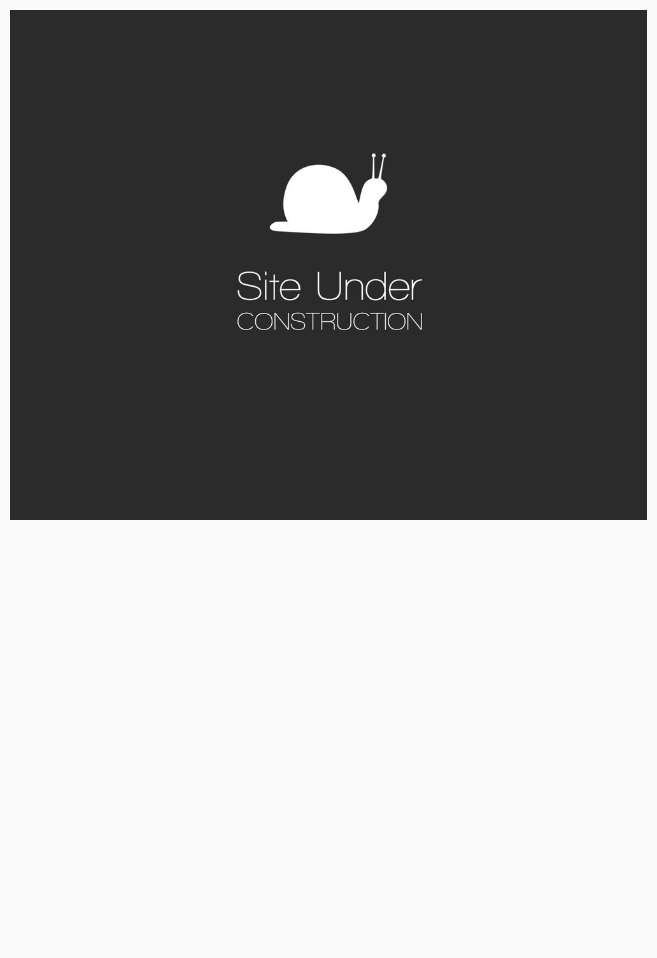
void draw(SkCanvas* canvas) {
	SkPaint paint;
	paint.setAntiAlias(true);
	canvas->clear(0xfffafafa);
	canvas->drawImageRect(SkImages::DeferredFromEncodedData(SkData::MakeFromFileName("img1.png")), SkRect::MakeXYWH(10, 10, 637, 510), SkSamplingOptions());
}
